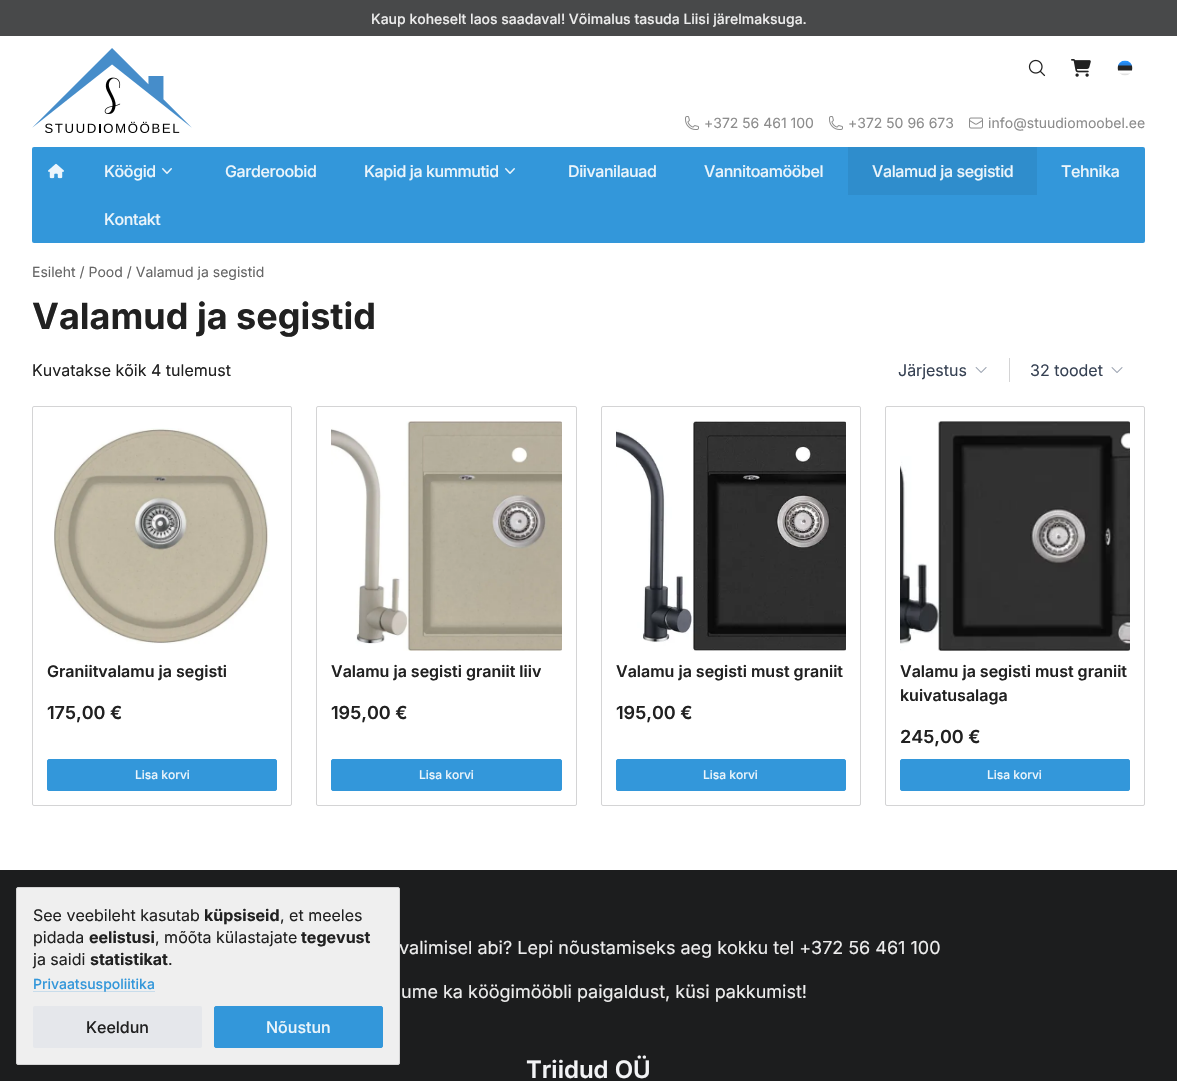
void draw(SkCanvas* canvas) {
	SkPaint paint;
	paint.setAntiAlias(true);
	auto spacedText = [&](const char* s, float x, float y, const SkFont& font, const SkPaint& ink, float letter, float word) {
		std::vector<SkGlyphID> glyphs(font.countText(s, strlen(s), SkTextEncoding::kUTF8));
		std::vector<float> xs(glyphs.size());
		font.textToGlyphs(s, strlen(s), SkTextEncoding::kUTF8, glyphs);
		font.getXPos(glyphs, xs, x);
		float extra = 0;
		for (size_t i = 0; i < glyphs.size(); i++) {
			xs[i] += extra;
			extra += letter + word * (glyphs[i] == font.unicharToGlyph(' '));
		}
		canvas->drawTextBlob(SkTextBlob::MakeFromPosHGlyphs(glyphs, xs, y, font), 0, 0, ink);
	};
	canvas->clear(0xffffffff);
	paint.setColor(0xff48494a);
	canvas->drawRect(SkRect::MakeXYWH(0, 0, 1177, 36), paint);
	SkFont f1(fontMgr->matchFamilyStyle("Inter", SkFontStyle(500, SkFontStyle::kNormal_Width, SkFontStyle::kUpright_Slant)), 14);
	f1.setSubpixel(true);
	paint.setColor(0xffededed);
	canvas->drawString("Kaup koheselt laos saadaval! Võimalus tasuda Liisi järelmaksuga.", 371, 24, f1, paint);
	canvas->drawImageRect(SkImages::DeferredFromEncodedData(SkData::MakeFromFileName("img1.png")), SkRect::MakeXYWH(32, 48, 160, 85), SkSamplingOptions());
	canvas->drawImageRect(SkImages::DeferredFromEncodedData(SkData::MakeFromFileName("img2.png")), SkRect::MakeXYWH(1028, 59, 18, 18), SkSamplingOptions());
	canvas->drawImageRect(SkImages::DeferredFromEncodedData(SkData::MakeFromFileName("img3.png")), SkRect::MakeXYWH(1071, 59, 20, 18), SkSamplingOptions());
	canvas->drawImageRect(SkImages::DeferredFromEncodedData(SkData::MakeFromFileName("img4.png")), SkRect::MakeXYWH(1117, 60, 16, 16), SkSamplingOptions());
	canvas->drawImageRect(SkImages::DeferredFromEncodedData(SkData::MakeFromFileName("img5.png")), SkRect::MakeXYWH(685, 116, 14, 14), SkSamplingOptions());
	SkFont f2(fontMgr->matchFamilyStyle("Inter", SkFontStyle::Normal()), 14);
	f2.setSubpixel(true);
	paint.setColor(0xff8c8c8c);
	canvas->drawString("+372 56 461 100", 704, 128, f2, paint);
	canvas->drawImageRect(SkImages::DeferredFromEncodedData(SkData::MakeFromFileName("img5.png")), SkRect::MakeXYWH(829, 116, 14, 14), SkSamplingOptions());
	canvas->drawString("+372 50 96 673", 848, 128, f2, paint);
	canvas->drawImageRect(SkImages::DeferredFromEncodedData(SkData::MakeFromFileName("img6.png")), SkRect::MakeXYWH(969, 117, 14, 12), SkSamplingOptions());
	canvas->drawString("info@stuudiomoobel.ee", 988, 128, f2, paint);
	paint.setColor(0xff3397da);
	canvas->drawRoundRect(SkRect::MakeXYWH(32, 147, 1113, 96), 2, 2, paint);
	canvas->drawImageRect(SkImages::DeferredFromEncodedData(SkData::MakeFromFileName("img7.png")), SkRect::MakeXYWH(48, 163, 16, 16), SkSamplingOptions());
	SkFont f3(fontMgr->matchFamilyStyle("Inter", SkFontStyle(500, SkFontStyle::kNormal_Width, SkFontStyle::kUpright_Slant)), 16);
	f3.setSubpixel(true);
	paint.setColor(0xffebf5fb);
	spacedText("Köögid", 104, 177, f3, paint, -0.4, 0);
	canvas->drawImageRect(SkImages::DeferredFromEncodedData(SkData::MakeFromFileName("img8.png")), SkRect::MakeXYWH(162, 168, 10, 6), SkSamplingOptions());
	spacedText("Garderoobid", 225, 177, f3, paint, -0.4, 0);
	spacedText("Kapid ja kummutid", 364, 177, f3, paint, -0.4, 0);
	canvas->drawImageRect(SkImages::DeferredFromEncodedData(SkData::MakeFromFileName("img8.png")), SkRect::MakeXYWH(505, 168, 10, 6), SkSamplingOptions());
	spacedText("Diivanilauad", 568, 177, f3, paint, -0.4, 0);
	spacedText("Vannitoamööbel", 704, 177, f3, paint, -0.4, 0);
	paint.setColor(0xff2f8dcc);
	canvas->drawRect(SkRect::MakeXYWH(848, 147, 189, 48), paint);
	paint.setColor(0xffebf5fb);
	spacedText("Valamud ja segistid", 872, 177, f3, paint, -0.4, 0);
	spacedText("Tehnika", 1061, 177, f3, paint, -0.4, 0);
	spacedText("Kontakt", 104, 225, f3, paint, -0.4, 0);
	paint.setColor(0xff666666);
	canvas->drawString("Esileht / Pood / Valamud ja segistid", 32, 277, f2, paint);
	SkFont f4(fontMgr->matchFamilyStyle("Inter", SkFontStyle::Bold()), 36);
	f4.setSubpixel(true);
	paint.setColor(0xff212121);
	canvas->drawString("Valamud ja segistid", 32, 329, f4, paint);
	SkFont f5(fontMgr->matchFamilyStyle("Inter", SkFontStyle::Normal()), 16);
	f5.setSubpixel(true);
	canvas->drawString("Kuvatakse kõik 4 tulemust", 32, 376, f5, paint);
	paint.setColor(0xffd4d4d5);
	canvas->drawRect(SkRect::MakeXYWH(1009, 358, 1, 24), paint);
	paint.setColor(0xff364153);
	canvas->drawString("Järjestus", 898, 376, f5, paint);
	canvas->drawImageRect(SkImages::DeferredFromEncodedData(SkData::MakeFromFileName("img9.png")), SkRect::MakeXYWH(975, 367, 12, 6), SkSamplingOptions());
	canvas->drawString("32 toodet", 1030, 376, f5, paint);
	canvas->drawImageRect(SkImages::DeferredFromEncodedData(SkData::MakeFromFileName("img10.png")), SkRect::MakeXYWH(1111, 367, 12, 6), SkSamplingOptions());
	paint.setStroke(true);
	paint.setStrokeWidth(1);
	paint.setColor(0xffd4d4d5);
	canvas->drawRoundRect(SkRect::MakeXYWH(32.5, 406.5, 259, 399), 1.5, 1.5, paint);
	canvas->drawImageRect(SkImages::DeferredFromEncodedData(SkData::MakeFromFileName("img11.png")), SkRect::MakeXYWH(54, 428, 216, 216), SkSamplingOptions());
	SkFont f6(fontMgr->matchFamilyStyle("Inter", SkFontStyle(600, SkFontStyle::kNormal_Width, SkFontStyle::kUpright_Slant)), 16);
	f6.setSubpixel(true);
	paint.setStroke(false);
	paint.setColor(0xff212121);
	canvas->drawString("Graniitvalamu ja segisti", 47, 677, f6, paint);
	SkFont f7(fontMgr->matchFamilyStyle("Inter", SkFontStyle(600, SkFontStyle::kNormal_Width, SkFontStyle::kUpright_Slant)), 18);
	f7.setSubpixel(true);
	canvas->drawString("175,00 €", 47, 719, f7, paint);
	paint.setColor(0xff3397da);
	canvas->drawRoundRect(SkRect::MakeXYWH(47.5, 759.5, 229, 31), 1.5, 1.5, paint);
	paint.setStroke(true);
	canvas->drawRoundRect(SkRect::MakeXYWH(47.5, 759.5, 229, 31), 1.5, 1.5, paint);
	SkFont f8(fontMgr->matchFamilyStyle("Inter", SkFontStyle(500, SkFontStyle::kNormal_Width, SkFontStyle::kUpright_Slant)), 12);
	f8.setSubpixel(true);
	paint.setStroke(false);
	paint.setColor(0xffebf5fb);
	canvas->drawString("Lisa korvi", 135, 779, f8, paint);
	paint.setStroke(true);
	paint.setColor(0xffd4d4d5);
	canvas->drawRoundRect(SkRect::MakeXYWH(316.5, 406.5, 260, 399), 1.5, 1.5, paint);
	canvas->drawImageRect(SkImages::DeferredFromEncodedData(SkData::MakeFromFileName("img12.png")), SkRect::MakeXYWH(331, 421, 231, 230), SkSamplingOptions());
	paint.setStroke(false);
	paint.setColor(0xff212121);
	canvas->drawString("Valamu ja segisti graniit liiv", 331, 677, f6, paint);
	canvas->drawString("195,00 €", 331, 719, f7, paint);
	paint.setColor(0xff3397da);
	canvas->drawRoundRect(SkRect::MakeXYWH(331.5, 759.5, 230, 31), 1.5, 1.5, paint);
	paint.setStroke(true);
	canvas->drawRoundRect(SkRect::MakeXYWH(331.5, 759.5, 230, 31), 1.5, 1.5, paint);
	paint.setStroke(false);
	paint.setColor(0xffebf5fb);
	canvas->drawString("Lisa korvi", 419, 779, f8, paint);
	paint.setStroke(true);
	paint.setColor(0xffd4d4d5);
	canvas->drawRoundRect(SkRect::MakeXYWH(601.5, 406.5, 259, 399), 1.5, 1.5, paint);
	canvas->drawImageRect(SkImages::DeferredFromEncodedData(SkData::MakeFromFileName("img13.png")), SkRect::MakeXYWH(616, 421, 230, 230), SkSamplingOptions());
	paint.setStroke(false);
	paint.setColor(0xff212121);
	canvas->drawString("Valamu ja segisti must graniit", 616, 677, f6, paint);
	canvas->drawString("195,00 €", 616, 719, f7, paint);
	paint.setColor(0xff3397da);
	canvas->drawRoundRect(SkRect::MakeXYWH(616.5, 759.5, 229, 31), 1.5, 1.5, paint);
	paint.setStroke(true);
	canvas->drawRoundRect(SkRect::MakeXYWH(616.5, 759.5, 229, 31), 1.5, 1.5, paint);
	paint.setStroke(false);
	paint.setColor(0xffebf5fb);
	canvas->drawString("Lisa korvi", 703, 779, f8, paint);
	paint.setStroke(true);
	paint.setColor(0xffd4d4d5);
	canvas->drawRoundRect(SkRect::MakeXYWH(885.5, 406.5, 259, 399), 1.5, 1.5, paint);
	canvas->drawImageRect(SkImages::DeferredFromEncodedData(SkData::MakeFromFileName("img14.png")), SkRect::MakeXYWH(900, 421, 230, 230), SkSamplingOptions());
	canvas->drawImageRect(SkImages::DeferredFromEncodedData(SkData::MakeFromFileName("img15.png")), SkRect::MakeXYWH(900, 421, 230, 230), SkSamplingOptions());
	paint.setStroke(false);
	paint.setColor(0xff212121);
	canvas->drawString("Valamu ja segisti must graniit", 900, 677, f6, paint);
	canvas->drawString("kuivatusalaga", 900, 701, f6, paint);
	canvas->drawString("245,00 €", 900, 743, f7, paint);
	paint.setColor(0xff3397da);
	canvas->drawRoundRect(SkRect::MakeXYWH(900.5, 759.5, 229, 31), 1.5, 1.5, paint);
	paint.setStroke(true);
	canvas->drawRoundRect(SkRect::MakeXYWH(900.5, 759.5, 229, 31), 1.5, 1.5, paint);
	paint.setStroke(false);
	paint.setColor(0xffebf5fb);
	canvas->drawString("Lisa korvi", 987, 779, f8, paint);
	paint.setColor(0xff1c1d1e);
	canvas->drawRect(SkRect::MakeXYWH(0, 870, 1177, 211), paint);
	SkFont f9(fontMgr->matchFamilyStyle("Inter", SkFontStyle::Normal()), 18);
	f9.setSubpixel(true);
	paint.setColor(0xffededed);
	canvas->drawString("valimisel abi? Lepi nõustamiseks aeg kokku tel +372 56 461 100", 399, 954, f9, paint);
	canvas->drawString("ume ka köögimööbli paigaldust, küsi pakkumist!", 401, 998, f9, paint);
	SkFont f10(fontMgr->matchFamilyStyle("Inter", SkFontStyle(600, SkFontStyle::kNormal_Width, SkFontStyle::kUpright_Slant)), 24);
	f10.setSubpixel(true);
	paint.setColor(0xfff3f4f6);
	canvas->drawString("Triidud OÜ", 526, 1078, f10, paint);
	paint.setColor(0xf2fafafa);
	canvas->drawRoundRect(SkRect::MakeXYWH(16.5, 887.5, 383, 177), 1.5, 1.5, paint);
	paint.setStroke(true);
	paint.setColor(0xffd4d4d5);
	canvas->drawRoundRect(SkRect::MakeXYWH(16.5, 887.5, 383, 177), 1.5, 1.5, paint);
	paint.setStroke(false);
	paint.setColor(0xff212121);
	canvas->drawString("See veebileht kasutab", 33, 921, f5, paint);
	SkFont f11(fontMgr->matchFamilyStyle("Inter", SkFontStyle::Bold()), 16);
	f11.setSubpixel(true);
	canvas->drawString("küpsiseid", 204, 921, f11, paint);
	canvas->drawString(", et meeles", 280, 921, f5, paint);
	canvas->drawString("pidada", 33, 943, f5, paint);
	canvas->drawString("eelistusi", 89, 943, f11, paint);
	canvas->drawString(", mõõta külastajate", 155, 943, f5, paint);
	canvas->drawString("tegevust", 301, 943, f11, paint);
	canvas->drawString("ja saidi", 33, 965, f5, paint);
	canvas->drawString("statistikat", 90, 965, f11, paint);
	canvas->drawString(".", 168, 965, f5, paint);
	paint.setColor(0xffc7dceb);
	canvas->drawRect(SkRect::MakeXYWH(33, 991, 122, 1), paint);
	paint.setColor(0xff3397da);
	canvas->drawString("Privaatsuspoliitika", 33, 989, f1, paint);
	paint.setColor(0xffe5e7eb);
	canvas->drawRoundRect(SkRect::MakeXYWH(33, 1006, 169, 42), 2, 2, paint);
	paint.setColor(0xff212121);
	canvas->drawString("Keeldun", 86, 1033, f3, paint);
	paint.setColor(0xff3397da);
	canvas->drawRoundRect(SkRect::MakeXYWH(214.5, 1006.5, 168, 41), 1.5, 1.5, paint);
	paint.setStroke(true);
	canvas->drawRoundRect(SkRect::MakeXYWH(214.5, 1006.5, 168, 41), 1.5, 1.5, paint);
	paint.setStroke(false);
	paint.setColor(0xffebf5fb);
	canvas->drawString("Nõustun", 266, 1033, f3, paint);
}
